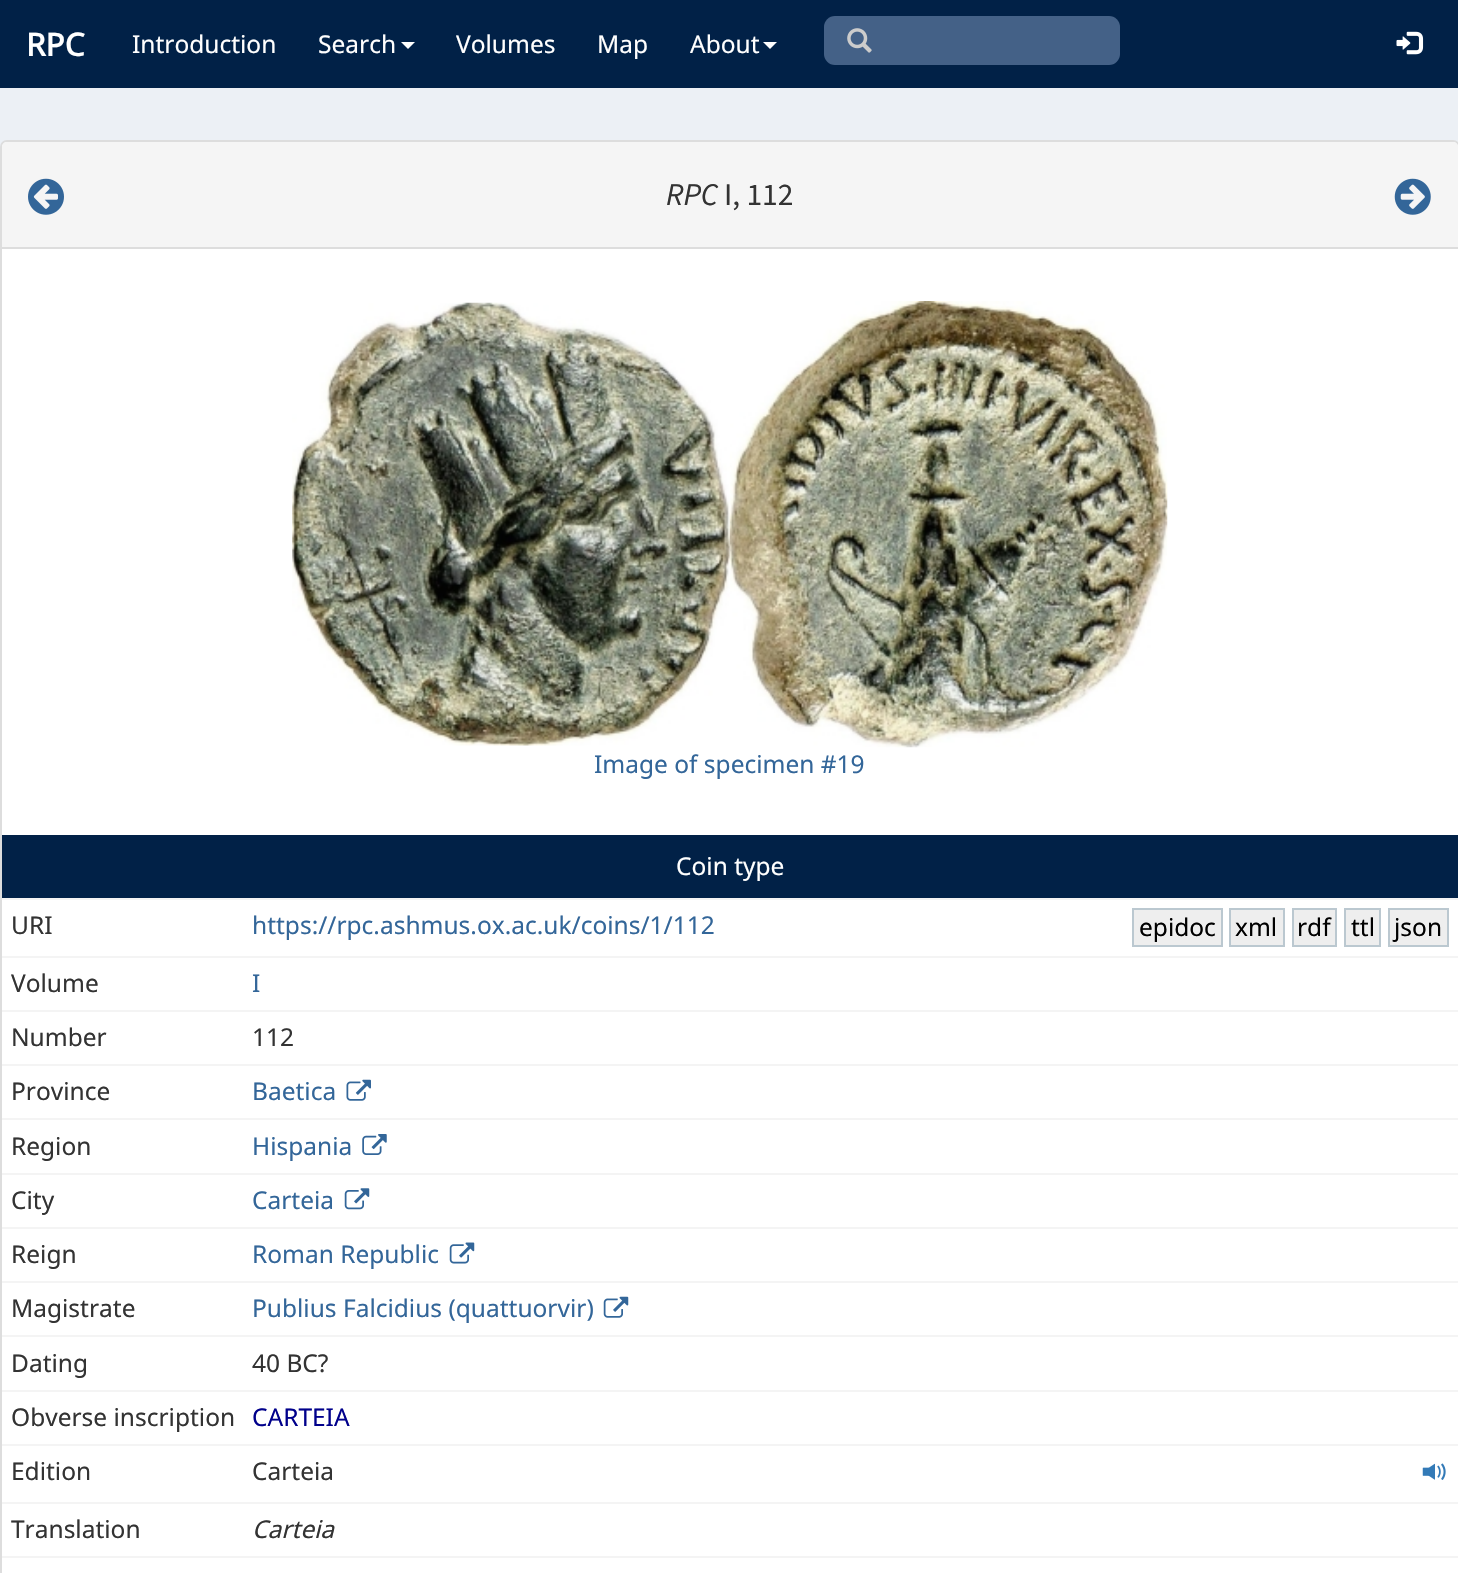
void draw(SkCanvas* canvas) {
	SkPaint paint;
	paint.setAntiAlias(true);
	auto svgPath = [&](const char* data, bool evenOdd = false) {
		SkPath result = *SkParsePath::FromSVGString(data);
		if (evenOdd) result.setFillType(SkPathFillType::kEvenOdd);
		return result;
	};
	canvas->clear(0xffecf0f5);
	paint.setColor(0xff012147);
	canvas->drawRect(SkRect::MakeXYWH(0, 0, 1458, 88), paint);
	SkFont f1(fontMgr->matchFamilyStyle("Noto Sans", SkFontStyle::Bold()), 31.5);
	f1.setSubpixel(true);
	paint.setColor(0xffffffff);
	canvas->drawString("RPC", 26, 56, f1, paint);
	SkFont f2(fontMgr->matchFamilyStyle("Noto Sans", SkFontStyle::Normal()), 24.5);
	f2.setSubpixel(true);
	canvas->drawString("Introduction", 132, 53, f2, paint);
	canvas->drawString("Search", 318, 53, f2, paint);
	canvas->drawPath(svgPath("M401 42H415L408 49Z"), paint);
	canvas->drawString("Volumes", 456, 53, f2, paint);
	canvas->drawString("Map", 597, 53, f2, paint);
	canvas->drawString("About", 690, 53, f2, paint);
	canvas->drawPath(svgPath("M763 42H777L770 49Z"), paint);
	paint.setColor(0xff446187);
	canvas->drawRoundRect(SkRect::MakeXYWH(824, 16, 296, 49), 11, 11, paint);
	canvas->drawImageRect(SkImages::DeferredFromEncodedData(SkData::MakeFromFileName("img1.png")), SkRect::MakeXYWH(847, 28, 25, 25), SkSamplingOptions());
	canvas->drawImageRect(SkImages::DeferredFromEncodedData(SkData::MakeFromFileName("img2.png")), SkRect::MakeXYWH(1396, 31, 28, 24), SkSamplingOptions());
	paint.setColor(0xffffffff);
	canvas->drawRoundRect(SkRect::MakeXYWH(1, 141, 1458, 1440), 6, 6, paint);
	paint.setStroke(true);
	paint.setStrokeWidth(2);
	paint.setColor(0xffdddddd);
	canvas->drawRoundRect(SkRect::MakeXYWH(1, 141, 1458, 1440), 6, 6, paint);
	paint.setStroke(false);
	paint.setColor(0xfff5f5f5);
	canvas->drawPath(svgPath("M7 142H1453C1456 142 1458 144 1458 147V249H2V147C2 144 4 142 7 142Z"), paint);
	paint.setColor(0xffdddddd);
	canvas->drawRect(SkRect::MakeXYWH(2, 247, 1456, 2), paint);
	canvas->drawImageRect(SkImages::DeferredFromEncodedData(SkData::MakeFromFileName("img3.png")), SkRect::MakeXYWH(28, 178, 36, 37), SkSamplingOptions());
	SkFont f3(fontMgr->matchFamilyStyle("Source Sans Pro", SkFontStyle::Italic()), 31.5);
	f3.setSubpixel(true);
	paint.setColor(0xff333333);
	canvas->drawString("RPC", 666, 205, f3, paint);
	SkFont f4(fontMgr->matchFamilyStyle("Source Sans Pro", SkFontStyle::Normal()), 31.5);
	f4.setSubpixel(true);
	canvas->drawString("I, 112", 724, 205, f4, paint);
	canvas->drawImageRect(SkImages::DeferredFromEncodedData(SkData::MakeFromFileName("img4.png")), SkRect::MakeXYWH(1394, 178, 37, 37), SkSamplingOptions());
	canvas->drawImageRect(SkImages::DeferredFromEncodedData(SkData::MakeFromFileName("img5.png")), SkRect::MakeXYWH(292, 302, 438, 444), SkSamplingOptions());
	canvas->drawImageRect(SkImages::DeferredFromEncodedData(SkData::MakeFromFileName("img6.png")), SkRect::MakeXYWH(729, 301, 439, 447), SkSamplingOptions());
	paint.setColor(0xff336699);
	canvas->drawString("Image of specimen #19", 594, 773, f2, paint);
	paint.setColor(0xff012147);
	canvas->drawRect(SkRect::MakeXYWH(2, 835, 1456, 63), paint);
	paint.setColor(0xffffffff);
	canvas->drawString("Coin type", 676, 875, f2, paint);
	paint.setColor(0xff333333);
	canvas->drawString("URI", 11, 934, f2, paint);
	paint.setColor(0xfff4f4f4);
	canvas->drawRect(SkRect::MakeXYWH(2, 898, 1456, 2), paint);
	paint.setColor(0xff336699);
	canvas->drawString("https://rpc.ashmus.ox.ac.uk/coins/1/112", 252, 934, f2, paint);
	paint.setColor(0xffeeeeee);
	canvas->drawRect(SkRect::MakeXYWH(1133, 909, 89, 37), paint);
	paint.setStroke(true);
	paint.setColor(0xffbbc8d0);
	canvas->drawRect(SkRect::MakeXYWH(1133, 909, 89, 37), paint);
	paint.setStroke(false);
	paint.setColor(0xff000000);
	canvas->drawString("epidoc", 1139, 936, f2, paint);
	paint.setColor(0xffeeeeee);
	canvas->drawRect(SkRect::MakeXYWH(1230, 909, 54, 37), paint);
	paint.setStroke(true);
	paint.setColor(0xffbbc8d0);
	canvas->drawRect(SkRect::MakeXYWH(1230, 909, 54, 37), paint);
	paint.setStroke(false);
	paint.setColor(0xff000000);
	canvas->drawString("xml", 1235, 936, f2, paint);
	paint.setColor(0xffeeeeee);
	canvas->drawRect(SkRect::MakeXYWH(1293, 909, 43, 37), paint);
	paint.setStroke(true);
	paint.setColor(0xffbbc8d0);
	canvas->drawRect(SkRect::MakeXYWH(1293, 909, 43, 37), paint);
	paint.setStroke(false);
	paint.setColor(0xff000000);
	canvas->drawString("rdf", 1297, 936, f2, paint);
	paint.setColor(0xffeeeeee);
	canvas->drawRect(SkRect::MakeXYWH(1345, 909, 35, 37), paint);
	paint.setStroke(true);
	paint.setColor(0xffbbc8d0);
	canvas->drawRect(SkRect::MakeXYWH(1345, 909, 35, 37), paint);
	paint.setStroke(false);
	paint.setColor(0xff000000);
	canvas->drawString("ttl", 1351, 936, f2, paint);
	paint.setColor(0xffeeeeee);
	canvas->drawRect(SkRect::MakeXYWH(1389, 909, 59, 37), paint);
	paint.setStroke(true);
	paint.setColor(0xffbbc8d0);
	canvas->drawRect(SkRect::MakeXYWH(1389, 909, 59, 37), paint);
	paint.setStroke(false);
	paint.setColor(0xff000000);
	canvas->drawString("json", 1394, 936, f2, paint);
	paint.setColor(0xff333333);
	canvas->drawString("Volume", 11, 992, f2, paint);
	paint.setColor(0xfff4f4f4);
	canvas->drawRect(SkRect::MakeXYWH(2, 956, 1456, 2), paint);
	paint.setColor(0xff336699);
	canvas->drawString("I", 252, 992, f2, paint);
	paint.setColor(0xff333333);
	canvas->drawString("Number", 11, 1046, f2, paint);
	paint.setColor(0xfff4f4f4);
	canvas->drawRect(SkRect::MakeXYWH(2, 1010, 1456, 2), paint);
	paint.setColor(0xff333333);
	canvas->drawString("112", 252, 1046, f2, paint);
	canvas->drawString("Province", 11, 1100, f2, paint);
	paint.setColor(0xfff4f4f4);
	canvas->drawRect(SkRect::MakeXYWH(2, 1064, 1456, 2), paint);
	paint.setColor(0xff336699);
	canvas->drawString("Baetica", 252, 1100, f2, paint);
	canvas->drawImageRect(SkImages::DeferredFromEncodedData(SkData::MakeFromFileName("img7.png")), SkRect::MakeXYWH(346, 1079, 25, 22), SkSamplingOptions());
	paint.setColor(0xff333333);
	canvas->drawString("Region", 11, 1155, f2, paint);
	paint.setColor(0xfff4f4f4);
	canvas->drawRect(SkRect::MakeXYWH(2, 1118, 1456, 2), paint);
	paint.setColor(0xff336699);
	canvas->drawString("Hispania", 252, 1155, f2, paint);
	canvas->drawImageRect(SkImages::DeferredFromEncodedData(SkData::MakeFromFileName("img8.png")), SkRect::MakeXYWH(362, 1134, 25, 21), SkSamplingOptions());
	paint.setColor(0xff333333);
	canvas->drawString("City", 11, 1209, f2, paint);
	paint.setColor(0xfff4f4f4);
	canvas->drawRect(SkRect::MakeXYWH(2, 1173, 1456, 2), paint);
	paint.setColor(0xff336699);
	canvas->drawString("Carteia", 252, 1209, f2, paint);
	canvas->drawImageRect(SkImages::DeferredFromEncodedData(SkData::MakeFromFileName("img9.png")), SkRect::MakeXYWH(344, 1188, 26, 22), SkSamplingOptions());
	paint.setColor(0xff333333);
	canvas->drawString("Reign", 11, 1263, f2, paint);
	paint.setColor(0xfff4f4f4);
	canvas->drawRect(SkRect::MakeXYWH(2, 1227, 1456, 2), paint);
	paint.setColor(0xff336699);
	canvas->drawString("Roman Republic", 252, 1263, f2, paint);
	canvas->drawImageRect(SkImages::DeferredFromEncodedData(SkData::MakeFromFileName("img10.png")), SkRect::MakeXYWH(449, 1242, 26, 22), SkSamplingOptions());
	paint.setColor(0xff333333);
	canvas->drawString("Magistrate", 11, 1317, f2, paint);
	paint.setColor(0xfff4f4f4);
	canvas->drawRect(SkRect::MakeXYWH(2, 1281, 1456, 2), paint);
	paint.setColor(0xff336699);
	canvas->drawString("Publius Falcidius (quattuorvir)", 252, 1317, f2, paint);
	canvas->drawImageRect(SkImages::DeferredFromEncodedData(SkData::MakeFromFileName("img11.png")), SkRect::MakeXYWH(603, 1296, 26, 22), SkSamplingOptions());
	paint.setColor(0xff333333);
	canvas->drawString("Dating", 11, 1372, f2, paint);
	paint.setColor(0xfff4f4f4);
	canvas->drawRect(SkRect::MakeXYWH(2, 1335, 1456, 2), paint);
	paint.setColor(0xff333333);
	canvas->drawString("40 BC?", 252, 1372, f2, paint);
	canvas->drawString("Obverse inscription", 11, 1426, f2, paint);
	paint.setColor(0xfff4f4f4);
	canvas->drawRect(SkRect::MakeXYWH(2, 1390, 1456, 2), paint);
	paint.setColor(0xff00008b);
	canvas->drawString("CARTEIA", 252, 1426, f2, paint);
	paint.setColor(0xff333333);
	canvas->drawString("Edition", 11, 1480, f2, paint);
	paint.setColor(0xfff4f4f4);
	canvas->drawRect(SkRect::MakeXYWH(2, 1444, 1456, 2), paint);
	paint.setColor(0xff333333);
	canvas->drawString("Carteia", 252, 1480, f2, paint);
	canvas->drawImageRect(SkImages::DeferredFromEncodedData(SkData::MakeFromFileName("img12.png")), SkRect::MakeXYWH(1422, 1463, 24, 17), SkSamplingOptions());
	canvas->drawString("Translation", 11, 1538, f2, paint);
	paint.setColor(0xfff4f4f4);
	canvas->drawRect(SkRect::MakeXYWH(2, 1502, 1456, 2), paint);
	SkFont f5(fontMgr->matchFamilyStyle("Noto Sans", SkFontStyle::Italic()), 24.5);
	f5.setSubpixel(true);
	paint.setColor(0xff333333);
	canvas->drawString("Carteia", 252, 1538, f5, paint);
	paint.setColor(0xfff4f4f4);
	canvas->drawRect(SkRect::MakeXYWH(2, 1556, 1456, 2), paint);
}
